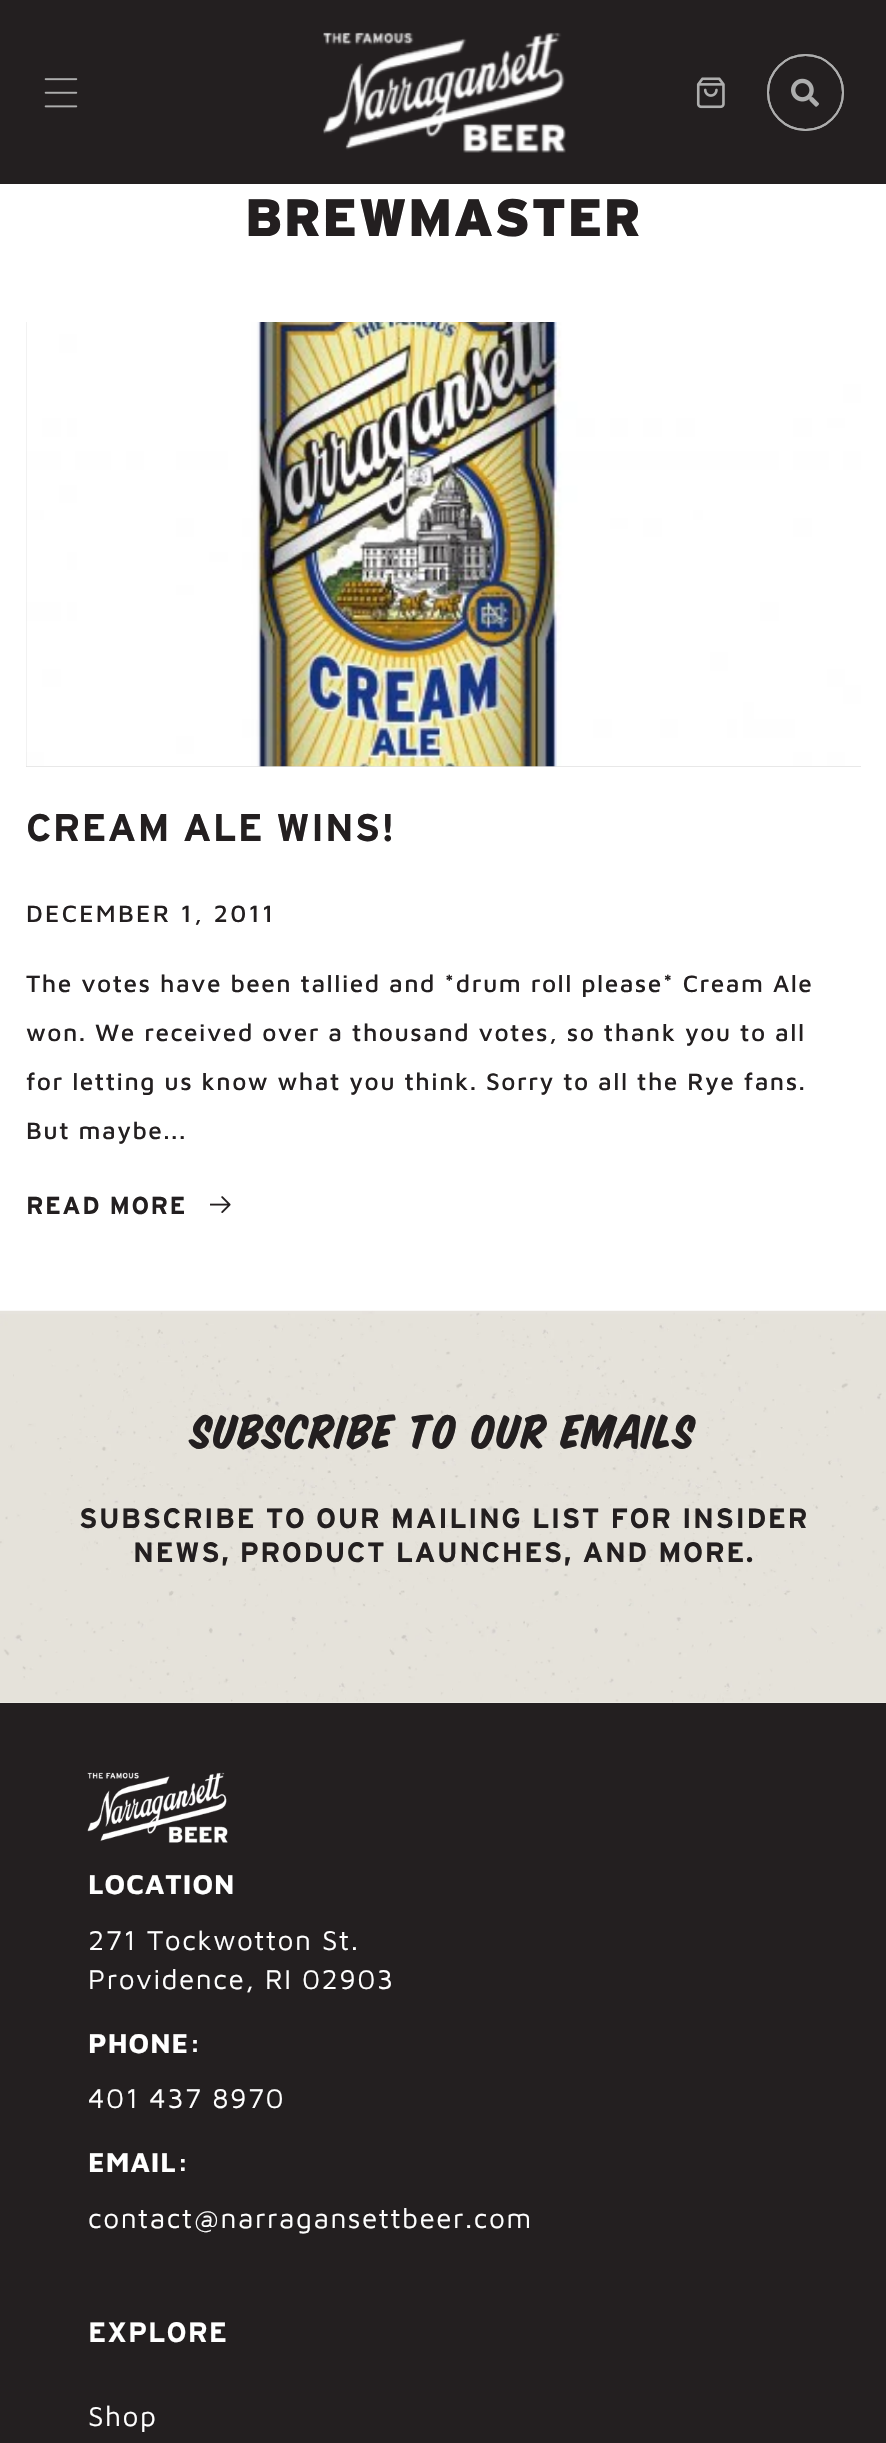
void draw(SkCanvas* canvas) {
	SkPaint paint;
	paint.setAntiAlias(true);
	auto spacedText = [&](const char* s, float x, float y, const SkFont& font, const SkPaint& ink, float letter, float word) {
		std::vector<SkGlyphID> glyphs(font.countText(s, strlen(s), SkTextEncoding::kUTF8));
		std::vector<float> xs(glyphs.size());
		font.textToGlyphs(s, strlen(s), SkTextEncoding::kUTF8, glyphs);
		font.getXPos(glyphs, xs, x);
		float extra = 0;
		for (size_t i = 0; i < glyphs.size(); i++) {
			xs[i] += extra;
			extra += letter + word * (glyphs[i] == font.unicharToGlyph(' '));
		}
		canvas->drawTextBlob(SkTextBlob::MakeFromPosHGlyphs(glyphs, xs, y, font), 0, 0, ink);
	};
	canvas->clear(0xffffffff);
	paint.setColor(0xff231f20);
	canvas->drawRect(SkRect::MakeXYWH(0, 0, 886, 184), paint);
	canvas->drawImageRect(SkImages::DeferredFromEncodedData(SkData::MakeFromFileName("img1.png")), SkRect::MakeXYWH(44, 78, 34, 30), SkSamplingOptions());
	canvas->drawImageRect(SkImages::DeferredFromEncodedData(SkData::MakeFromFileName("img2.png")), SkRect::MakeXYWH(323, 32, 243, 121), SkSamplingOptions());
	canvas->drawImageRect(SkImages::DeferredFromEncodedData(SkData::MakeFromFileName("img3.png")), SkRect::MakeXYWH(696, 77, 29, 32), SkSamplingOptions());
	paint.setStroke(true);
	paint.setStrokeWidth(2);
	paint.setColor(0xffadadad);
	canvas->drawCircle(805.5, 92.5, 37.5, paint);
	canvas->drawCircle(805.5, 92.5, 37.5, paint);
	canvas->drawImageRect(SkImages::DeferredFromEncodedData(SkData::MakeFromFileName("img4.png")), SkRect::MakeXYWH(791, 78, 28, 29), SkSamplingOptions());
	SkFont f1(fontMgr->matchFamilyStyle("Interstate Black", SkFontStyle(900, SkFontStyle::kNormal_Width, SkFontStyle::kUpright_Slant)), 52.5);
	f1.setSubpixel(true);
	paint.setStroke(false);
	paint.setColor(0xff231f20);
	spacedText("BREWMASTER", 245, 236, f1, paint, 1.05, 0);
	paint.setColor(0xffe0e0e0);
	canvas->drawRect(SkRect::MakeXYWH(26, 322, 835, 445), paint);
	canvas->drawImageRect(SkImages::DeferredFromEncodedData(SkData::MakeFromFileName("img5.png")), SkRect::MakeXYWH(26, 322, 835, 445), SkSamplingOptions());
	SkFont f2(fontMgr->matchFamilyStyle("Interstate", SkFontStyle::Bold()), 38.5);
	f2.setSubpixel(true);
	paint.setColor(0xff231f20);
	spacedText("CREAM ALE WINS!", 26, 841, f2, paint, 1.05, 0);
	SkFont f3(fontMgr->matchFamilyStyle("Maven Pro", SkFontStyle(500, SkFontStyle::kNormal_Width, SkFontStyle::kUpright_Slant)), 24.5);
	f3.setSubpixel(true);
	spacedText("DECEMBER 1, 2011", 26, 922, f3, paint, 2.25, 0);
	spacedText("The votes have been tallied and *drum roll please* Cream Ale", 26, 992, f3, paint, 1.47, 0);
	spacedText("won. We received over a thousand votes, so thank you to all", 26, 1041, f3, paint, 1.47, 0);
	spacedText("for letting us know what you think. Sorry to all the Rye fans.", 26, 1090, f3, paint, 1.47, 0);
	spacedText("But maybe...", 26, 1139, f3, paint, 1.47, 0);
	SkFont f4(fontMgr->matchFamilyStyle("Interstate", SkFontStyle::Bold()), 24.5);
	f4.setSubpixel(true);
	spacedText("READ MORE", 26, 1214, f4, paint, 1.47, 0);
	canvas->drawImageRect(SkImages::DeferredFromEncodedData(SkData::MakeFromFileName("img6.png")), SkRect::MakeXYWH(210, 1196, 21, 17), SkSamplingOptions());
	canvas->drawImageRect(SkImages::DeferredFromEncodedData(SkData::MakeFromFileName("img7.png")), SkRect::MakeXYWH(0, 1310, 886, 393), SkSamplingOptions());
	SkFont f5(fontMgr->matchFamilyStyle("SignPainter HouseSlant", SkFontStyle::Normal()), 52.5);
	f5.setSubpixel(true);
	spacedText("SUBSCRIBE TO OUR EMAILS", 191, 1448, f5, paint, 1.05, 0);
	SkFont f6(fontMgr->matchFamilyStyle("Interstate", SkFontStyle::Bold()), 28);
	f6.setSubpixel(true);
	spacedText("SUBSCRIBE TO OUR MAILING LIST FOR INSIDER", 79, 1528, f6, paint, 1.47, 0);
	spacedText("NEWS, PRODUCT LAUNCHES, AND MORE.", 133, 1562, f6, paint, 1.47, 0);
	canvas->drawRect(SkRect::MakeXYWH(0, 1703, 886, 740), paint);
	canvas->drawImageRect(SkImages::DeferredFromEncodedData(SkData::MakeFromFileName("img8.png")), SkRect::MakeXYWH(87, 1772, 141, 71), SkSamplingOptions());
	SkFont f7(fontMgr->matchFamilyStyle("Maven Pro", SkFontStyle::Bold()), 28);
	f7.setSubpixel(true);
	paint.setColor(0xffffffff);
	spacedText("LOCATION", 88, 1894, f7, paint, 1.05, 0);
	SkFont f8(fontMgr->matchFamilyStyle("Maven Pro", SkFontStyle::Normal()), 28);
	f8.setSubpixel(true);
	spacedText("271 Tockwotton St.", 88, 1950, f8, paint, 1.47, 0);
	spacedText("Providence, RI 02903", 88, 1989, f8, paint, 1.47, 0);
	spacedText("PHONE:", 88, 2053, f7, paint, 1.05, 0);
	spacedText("401 437 8970", 88, 2108, f8, paint, 1.47, 0);
	spacedText("EMAIL:", 88, 2172, f7, paint, 1.05, 0);
	spacedText("contact@narragansettbeer.com", 88, 2228, f8, paint, 1.47, 0);
	spacedText("EXPLORE", 88, 2342, f6, paint, 1.05, 0);
	spacedText("Shop", 88, 2426, f8, paint, 1.47, 0);
}
